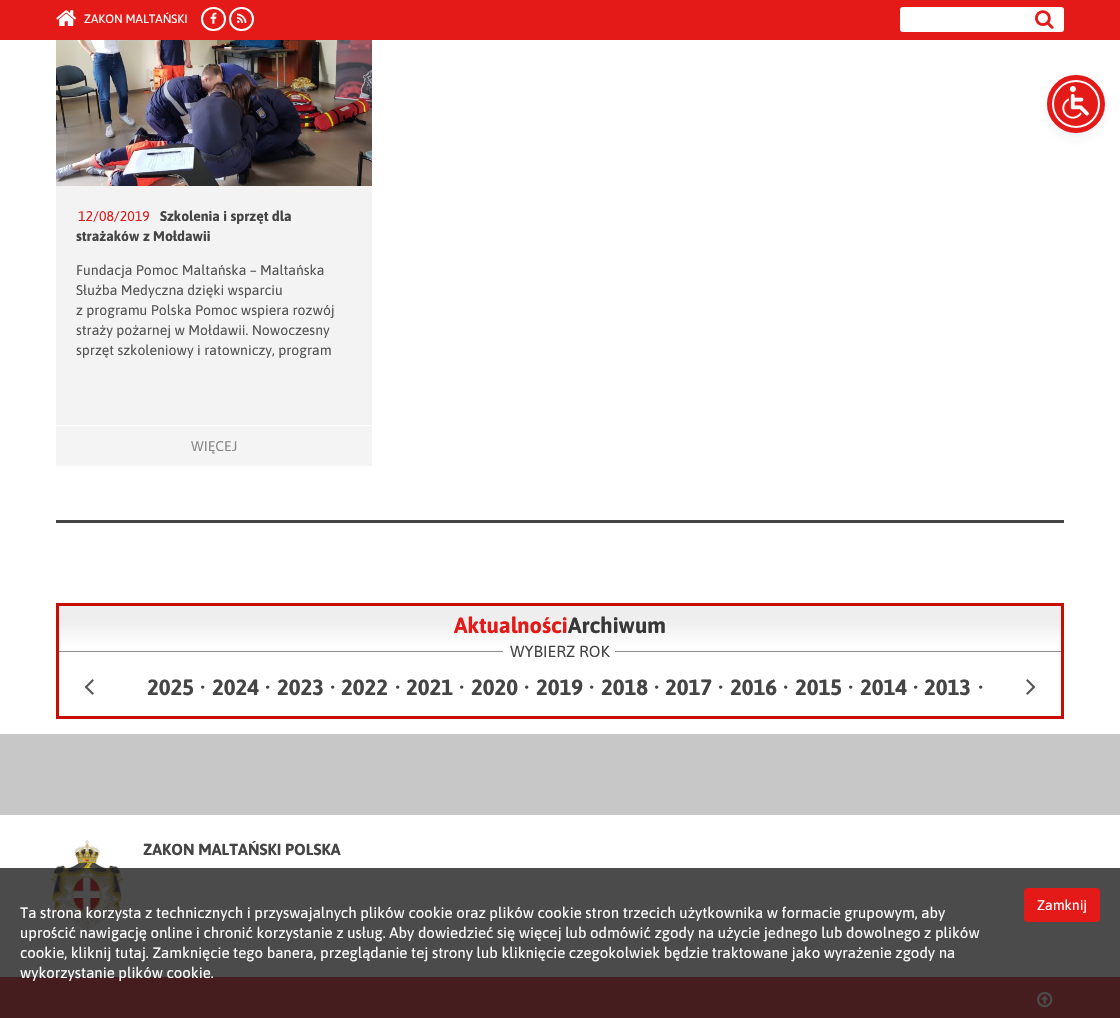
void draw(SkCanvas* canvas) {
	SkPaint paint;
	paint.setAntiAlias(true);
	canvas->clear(0xffffffff);
	paint.setColor(0xffe31a18);
	canvas->drawRect(SkRect::MakeXYWH(0, 0, 1120, 40), paint);
	canvas->drawImageRect(SkImages::DeferredFromEncodedData(SkData::MakeFromFileName("img1.png")), SkRect::MakeXYWH(56, 10, 21, 16), SkSamplingOptions());
	SkFont f1(fontMgr->matchFamilyStyle("Asap", SkFontStyle::Normal()), 12);
	f1.setSubpixel(true);
	paint.setColor(0xffffffff);
	canvas->drawString("ZAKON MALTAŃSKI", 84, 23, f1, paint);
	paint.setStroke(true);
	paint.setStrokeWidth(2);
	canvas->drawRoundRect(SkRect::MakeXYWH(202, 8, 23, 22), 11, 11, paint);
	canvas->drawImageRect(SkImages::DeferredFromEncodedData(SkData::MakeFromFileName("img2.png")), SkRect::MakeXYWH(210, 12, 7, 12), SkSamplingOptions());
	canvas->drawRoundRect(SkRect::MakeXYWH(230, 8, 23, 22), 11, 11, paint);
	canvas->drawImageRect(SkImages::DeferredFromEncodedData(SkData::MakeFromFileName("img3.png")), SkRect::MakeXYWH(237, 13, 10, 10), SkSamplingOptions());
	paint.setStroke(false);
	canvas->drawRoundRect(SkRect::MakeXYWH(900, 7, 164, 25), 3, 3, paint);
	canvas->drawImageRect(SkImages::DeferredFromEncodedData(SkData::MakeFromFileName("img4.png")), SkRect::MakeXYWH(1035, 10, 19, 19), SkSamplingOptions());
	paint.setColor(0xfff3f3f3);
	canvas->drawRect(SkRect::MakeXYWH(56, 186, 316, 239), paint);
	canvas->drawImageRect(SkImages::DeferredFromEncodedData(SkData::MakeFromFileName("img5.png")), SkRect::MakeXYWH(56, 40, 316, 146), SkSamplingOptions());
	SkFont f2(fontMgr->matchFamilyStyle("Asap", SkFontStyle::Normal()), 14);
	f2.setSubpixel(true);
	paint.setColor(0xffe31a18);
	canvas->drawString("12/08/2019", 78, 221, f2, paint);
	SkFont f3(fontMgr->matchFamilyStyle("Asap", SkFontStyle::Bold()), 14);
	f3.setSubpixel(true);
	paint.setColor(0xff454545);
	canvas->drawString("Szkolenia i sprzęt dla", 160, 221, f3, paint);
	canvas->drawString("strażaków z Mołdawii", 76, 241, f3, paint);
	paint.setColor(0xff555555);
	canvas->drawString("Fundacja Pomoc Maltańska – Maltańska", 76, 275, f2, paint);
	canvas->drawString("Służba Medyczna dzięki wsparciu", 76, 295, f2, paint);
	canvas->drawString("z programu Polska Pomoc wspiera rozwój", 76, 315, f2, paint);
	canvas->drawString("straży pożarnej w Mołdawii. Nowoczesny", 76, 335, f2, paint);
	canvas->drawString("sprzęt szkoleniowy i ratowniczy, program", 76, 355, f2, paint);
	paint.setColor(0xfff4f4f4);
	canvas->drawRect(SkRect::MakeXYWH(56, 426, 316, 40), paint);
	paint.setColor(0xff888888);
	canvas->drawString("WIĘCEJ", 191, 451, f2, paint);
	paint.setColor(0xff454545);
	canvas->drawRect(SkRect::MakeXYWH(56, 520, 1008, 3), paint);
	canvas->drawImageRect(SkImages::DeferredFromEncodedData(SkData::MakeFromFileName("img6.png")), SkRect::MakeXYWH(59, 606, 1002, 46), SkSamplingOptions());
	paint.setStroke(true);
	paint.setStrokeWidth(3);
	paint.setColor(0xffc80e00);
	canvas->drawRect(SkRect::MakeXYWH(57.5, 604.5, 1005, 113), paint);
	SkFont f4(fontMgr->matchFamilyStyle("Asap", SkFontStyle::Bold()), 22);
	f4.setSubpixel(true);
	paint.setStroke(false);
	paint.setColor(0xffe31a18);
	canvas->drawString("Aktualności", 454, 633, f4, paint);
	paint.setColor(0xff383838);
	canvas->drawString("Archiwum", 568, 633, f4, paint);
	SkFont f5(fontMgr->matchFamilyStyle("Asap", SkFontStyle::Normal()), 16);
	f5.setSubpixel(true);
	paint.setColor(0xff454545);
	canvas->drawString("WYBIERZ ROK", 510, 657, f5, paint);
	canvas->drawImageRect(SkImages::DeferredFromEncodedData(SkData::MakeFromFileName("img7.png")), SkRect::MakeXYWH(84, 679, 10, 16), SkSamplingOptions());
	canvas->drawString("2025", 147, 695, f4, paint);
	SkFont f6(fontMgr->matchFamilyStyle("Asap", SkFontStyle::Normal()), 22);
	f6.setSubpixel(true);
	canvas->drawString("•", 199, 695, f6, paint);
	canvas->drawString("2024", 212, 695, f4, paint);
	canvas->drawString("•", 264, 695, f6, paint);
	canvas->drawString("2023", 277, 695, f4, paint);
	canvas->drawString("•", 329, 695, f6, paint);
	canvas->drawString("2022", 341, 695, f4, paint);
	canvas->drawString("•", 394, 695, f6, paint);
	canvas->drawString("2021", 406, 695, f4, paint);
	canvas->drawString("•", 458, 695, f6, paint);
	canvas->drawString("2020", 471, 695, f4, paint);
	canvas->drawString("•", 523, 695, f6, paint);
	canvas->drawString("2019", 536, 695, f4, paint);
	canvas->drawString("•", 588, 695, f6, paint);
	canvas->drawString("2018", 601, 695, f4, paint);
	canvas->drawString("•", 653, 695, f6, paint);
	canvas->drawString("2017", 665, 695, f4, paint);
	canvas->drawString("•", 717, 695, f6, paint);
	canvas->drawString("2016", 730, 695, f4, paint);
	canvas->drawString("•", 782, 695, f6, paint);
	canvas->drawString("2015", 795, 695, f4, paint);
	canvas->drawString("•", 847, 695, f6, paint);
	canvas->drawString("2014", 860, 695, f4, paint);
	canvas->drawString("•", 912, 695, f6, paint);
	canvas->drawString("2013", 924, 695, f4, paint);
	canvas->drawString("•", 977, 695, f6, paint);
	canvas->drawImageRect(SkImages::DeferredFromEncodedData(SkData::MakeFromFileName("img8.png")), SkRect::MakeXYWH(1026, 679, 10, 16), SkSamplingOptions());
	paint.setColor(0xffc7c7c7);
	canvas->drawRect(SkRect::MakeXYWH(0, 734, 1120, 81), paint);
	canvas->drawImageRect(SkImages::DeferredFromEncodedData(SkData::MakeFromFileName("img9.png")), SkRect::MakeXYWH(51, 840, 72, 92), SkSamplingOptions());
	SkFont f7(fontMgr->matchFamilyStyle("Asap", SkFontStyle::Bold()), 16);
	f7.setSubpixel(true);
	paint.setColor(0xff454545);
	canvas->drawString("ZAKON MALTAŃSKI POLSKA", 143, 855, f7, paint);
	paint.setColor(0xffe5191a);
	canvas->drawRect(SkRect::MakeXYWH(0, 977, 1120, 41), paint);
	canvas->drawImageRect(SkImages::DeferredFromEncodedData(SkData::MakeFromFileName("img10.png")), SkRect::MakeXYWH(1037, 991, 16, 17), SkSamplingOptions());
	paint.setColor(0x335d6494);
	paint.setMaskFilter(SkMaskFilter::MakeBlur(kNormal_SkBlurStyle, 2));
	canvas->drawRoundRect(SkRect::MakeXYWH(1052, 82, 48, 48), 24, 24, paint);
	paint.setMaskFilter(nullptr);
	paint.setColor(0x26252c61);
	paint.setMaskFilter(SkMaskFilter::MakeBlur(kNormal_SkBlurStyle, 7.5));
	canvas->drawRoundRect(SkRect::MakeXYWH(1052, 85, 48, 48), 24, 24, paint);
	paint.setMaskFilter(nullptr);
	paint.setColor(0xffe31a18);
	canvas->drawCircle(1076, 104, 23, paint);
	paint.setStroke(true);
	paint.setStrokeWidth(2);
	paint.setColor(0xffffffff);
	canvas->drawCircle(1076, 104, 23, paint);
	paint.setStrokeWidth(5);
	paint.setColor(0xffe31a18);
	canvas->drawCircle(1076, 104, 26.5, paint);
	canvas->drawImageRect(SkImages::DeferredFromEncodedData(SkData::MakeFromFileName("img11.png")), SkRect::MakeXYWH(1062, 86, 27, 33), SkSamplingOptions());
	paint.setStroke(false);
	paint.setColor(0xcc1e1e1e);
	canvas->drawRect(SkRect::MakeXYWH(0, 868, 1120, 150), paint);
	SkFont f8(fontMgr->matchFamilyStyle("Asap", SkFontStyle::Normal()), 15);
	f8.setSubpixel(true);
	paint.setColor(0xffffffff);
	canvas->drawString("Ta strona korzysta z technicznych i przyswajalnych plików cookie oraz plików cookie stron trzecich użytkownika w formacie grupowym, aby", 20, 918, f8, paint);
	canvas->drawString("uprościć nawigację online i chronić korzystanie z usług. Aby dowiedzieć się więcej lub odmówić zgody na użycie jednego lub dowolnego z plików", 20, 938, f8, paint);
	canvas->drawString("cookie, kliknij tutaj. Zamknięcie tego banera, przeglądanie tej strony lub kliknięcie czegokolwiek będzie traktowane jako wyrażenie zgody na", 20, 958, f8, paint);
	canvas->drawString("wykorzystanie plików cookie.", 20, 978, f8, paint);
	paint.setColor(0xffe31a18);
	canvas->drawRoundRect(SkRect::MakeXYWH(1024, 888, 76, 34), 4, 4, paint);
	paint.setColor(0xffffffff);
	canvas->drawString("Zamknij", 1037, 910, f2, paint);
}
